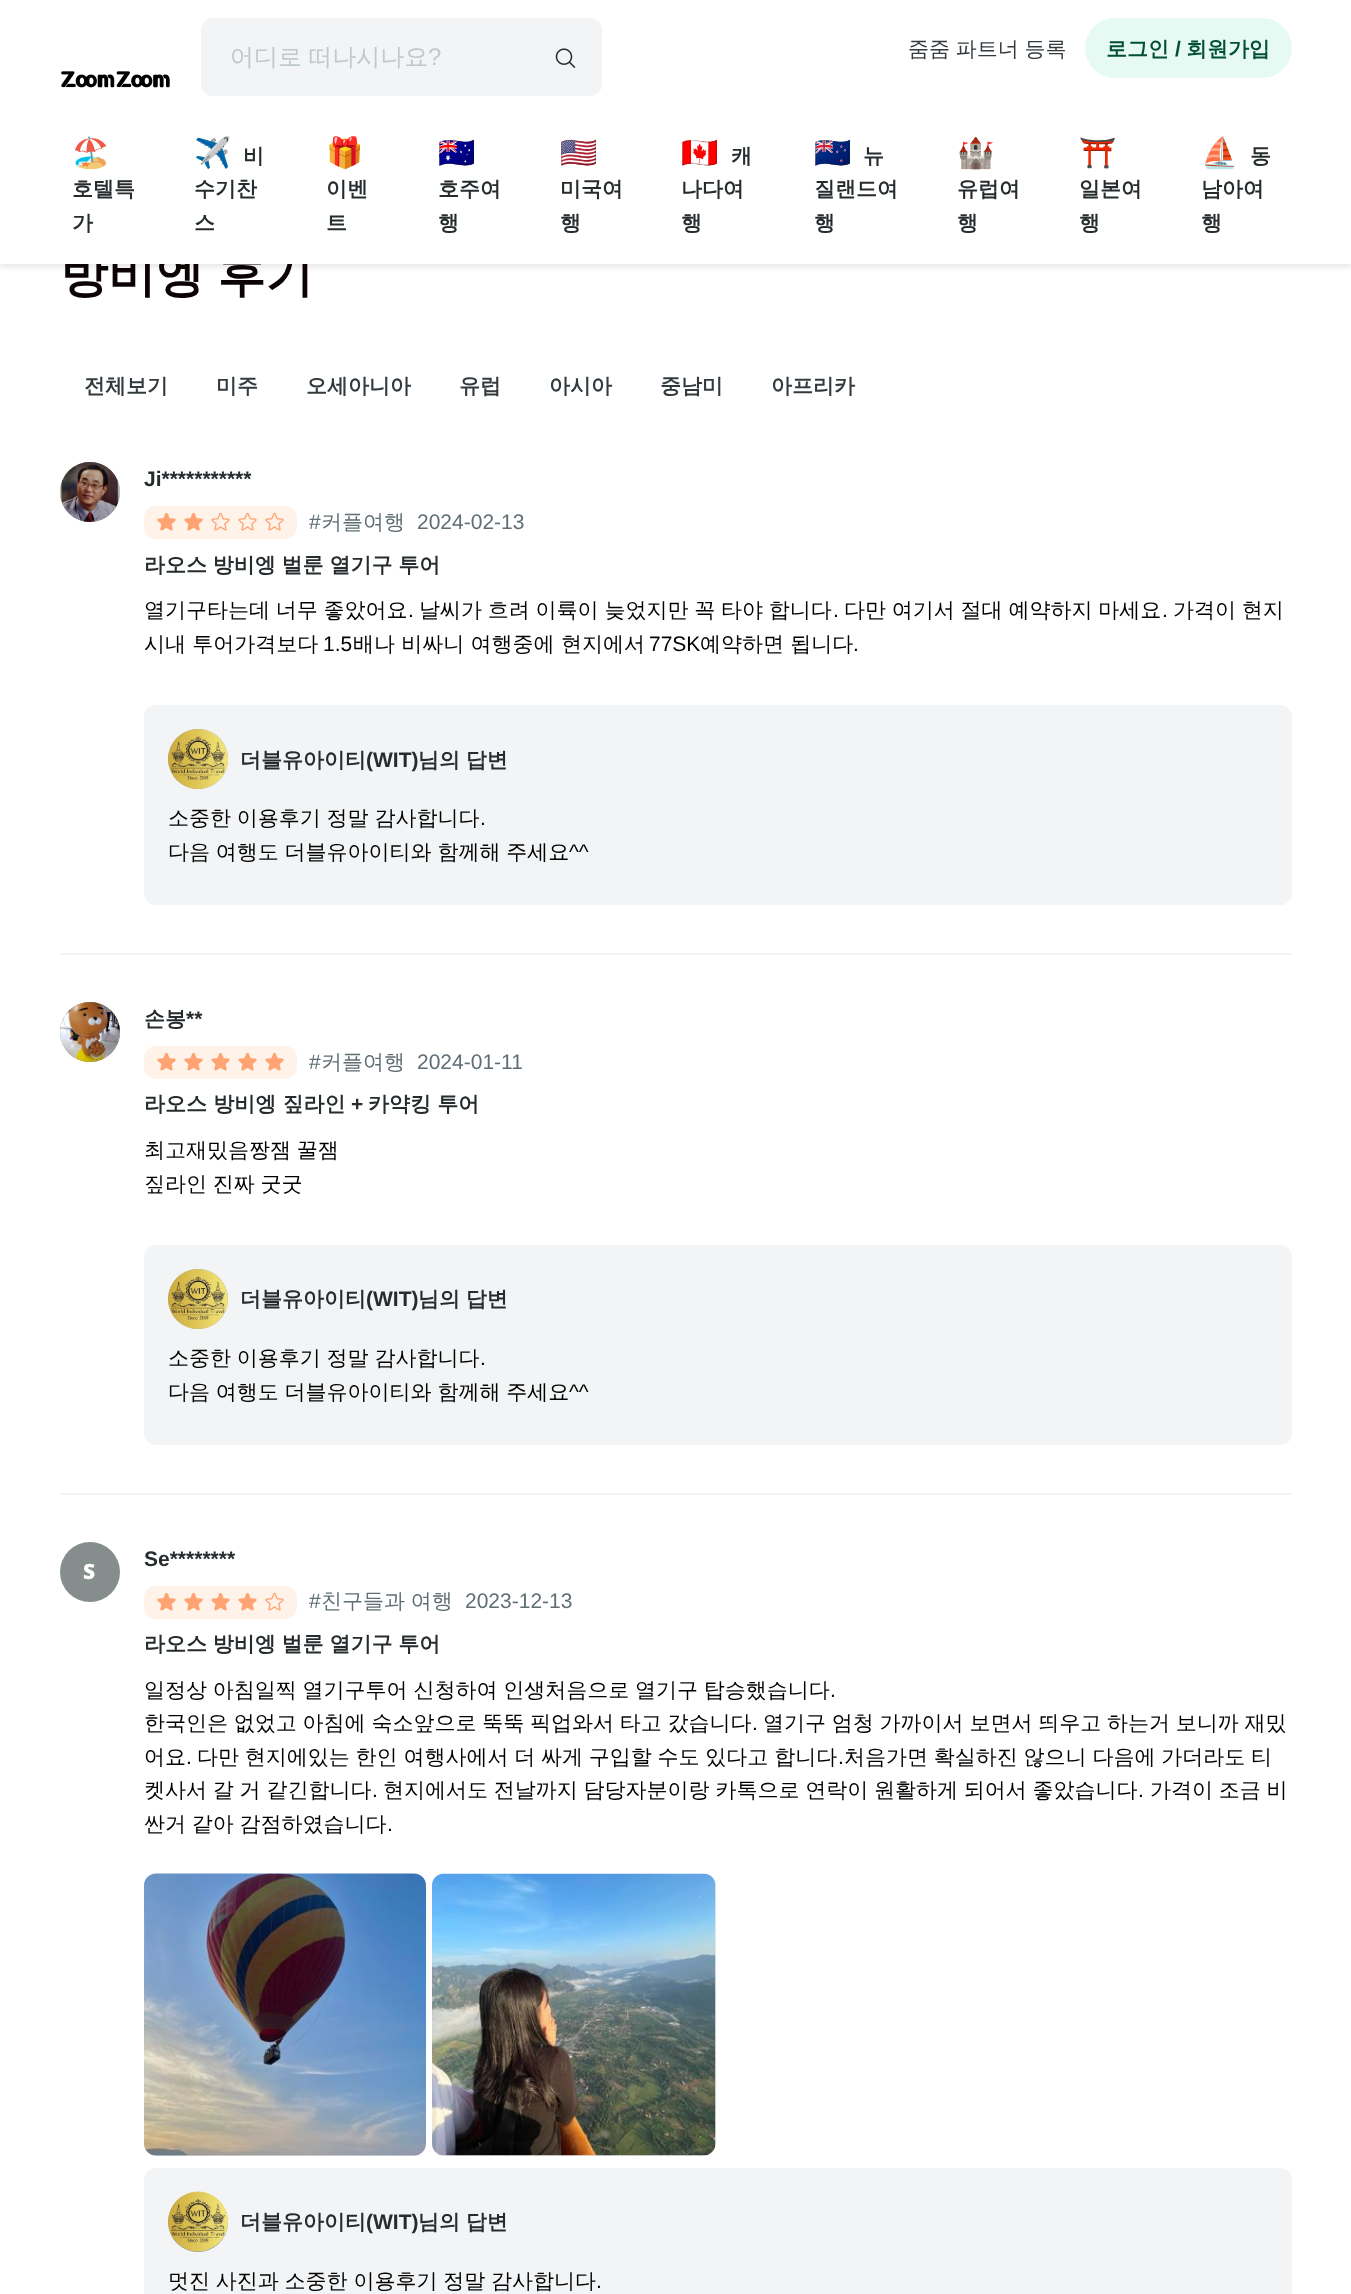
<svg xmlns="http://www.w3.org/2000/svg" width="1351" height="2294">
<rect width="100%" height="100%" fill="#fff"/>
<rect y="3" width="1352" height="264" fill="#0000001a" filter="blur(3px)"/>
<text x="60" y="291" word-spacing="-1" style="font-family:WenQuanYi Zen Hei;font-size:48px;font-weight:bold;fill:#0c0404">방비엥 후기</text>
<rect width="1351" height="264" fill="#fff"/>
<rect x="201" y="18" width="401" height="78" rx="12" fill="#f2f4f5"/>
<text x="230" y="65" word-spacing="-1" style="font-family:WenQuanYi Zen Hei;font-size:24px;font-weight:500;fill:#bfc9cd">어디로 떠나시나요</text>
<text x="428" y="65" style="font-family:Liberation Sans;font-size:24px;fill:#bfc9cd">?</text>
<image x="555" y="48" width="21" height="20" href="media/1.png"/>
<image x="61" y="71" width="109" height="17" href="media/2.png"/>
<text x="908" y="56" word-spacing="-0.5" style="font-family:WenQuanYi Zen Hei;font-size:21px;font-weight:500;fill:#333a3e">줌줌 파트너 등록</text>
<rect x="1085" y="18" width="207" height="60" rx="30" fill="#e6f9f2"/>
<text x="1106" y="56" style="font-family:WenQuanYi Zen Hei;font-size:21px;font-weight:bold;fill:#014f34">로그인</text>
<text x="1175" y="56" style="font-family:Liberation Sans;font-size:21px;font-weight:bold;fill:#014f34">/</text>
<text x="1186" y="56" style="font-family:WenQuanYi Zen Hei;font-size:21px;font-weight:bold;fill:#014f34">회원가입</text>
<text x="72" y="163" style="font-family:Noto Color Emoji;font-size:30px;font-weight:bold;fill:#262c2e">🏖️</text>
<text x="72" y="196" style="font-family:WenQuanYi Zen Hei;font-size:21px;font-weight:bold;fill:#262c2e">호텔특</text>
<text x="72" y="230" style="font-family:WenQuanYi Zen Hei;font-size:21px;font-weight:bold;fill:#262c2e">가</text>
<text x="194" y="163" style="font-family:Noto Color Emoji;font-size:30px;font-weight:bold;fill:#262c2e">✈️</text>
<text x="243" y="163" style="font-family:WenQuanYi Zen Hei;font-size:21px;font-weight:bold;fill:#262c2e">비</text>
<text x="194" y="196" style="font-family:WenQuanYi Zen Hei;font-size:21px;font-weight:bold;fill:#262c2e">수기찬</text>
<text x="194" y="230" style="font-family:WenQuanYi Zen Hei;font-size:21px;font-weight:bold;fill:#262c2e">스</text>
<text x="326" y="163" style="font-family:Noto Color Emoji;font-size:30px;font-weight:bold;fill:#262c2e">🎁</text>
<text x="326" y="196" style="font-family:WenQuanYi Zen Hei;font-size:21px;font-weight:bold;fill:#262c2e">이벤</text>
<text x="326" y="230" style="font-family:WenQuanYi Zen Hei;font-size:21px;font-weight:bold;fill:#262c2e">트</text>
<text x="438" y="163" style="font-family:Noto Color Emoji;font-size:30px;font-weight:bold;fill:#262c2e">🇦🇺</text>
<text x="438" y="196" style="font-family:WenQuanYi Zen Hei;font-size:21px;font-weight:bold;fill:#262c2e">호주여</text>
<text x="438" y="230" style="font-family:WenQuanYi Zen Hei;font-size:21px;font-weight:bold;fill:#262c2e">행</text>
<text x="560" y="163" style="font-family:Noto Color Emoji;font-size:30px;font-weight:bold;fill:#262c2e">🇺🇸</text>
<text x="560" y="196" style="font-family:WenQuanYi Zen Hei;font-size:21px;font-weight:bold;fill:#262c2e">미국여</text>
<text x="560" y="230" style="font-family:WenQuanYi Zen Hei;font-size:21px;font-weight:bold;fill:#262c2e">행</text>
<text x="681" y="163" style="font-family:Noto Color Emoji;font-size:30px;font-weight:bold;fill:#262c2e">🇨🇦</text>
<text x="731" y="163" style="font-family:WenQuanYi Zen Hei;font-size:21px;font-weight:bold;fill:#262c2e">캐</text>
<text x="681" y="196" style="font-family:WenQuanYi Zen Hei;font-size:21px;font-weight:bold;fill:#262c2e">나다여</text>
<text x="681" y="230" style="font-family:WenQuanYi Zen Hei;font-size:21px;font-weight:bold;fill:#262c2e">행</text>
<text x="814" y="163" style="font-family:Noto Color Emoji;font-size:30px;font-weight:bold;fill:#262c2e">🇳🇿</text>
<text x="863" y="163" style="font-family:WenQuanYi Zen Hei;font-size:21px;font-weight:bold;fill:#262c2e">뉴</text>
<text x="814" y="196" style="font-family:WenQuanYi Zen Hei;font-size:21px;font-weight:bold;fill:#262c2e">질랜드여</text>
<text x="814" y="230" style="font-family:WenQuanYi Zen Hei;font-size:21px;font-weight:bold;fill:#262c2e">행</text>
<text x="957" y="163" style="font-family:Noto Color Emoji;font-size:30px;font-weight:bold;fill:#262c2e">🏰</text>
<text x="957" y="196" style="font-family:WenQuanYi Zen Hei;font-size:21px;font-weight:bold;fill:#262c2e">유럽여</text>
<text x="957" y="230" style="font-family:WenQuanYi Zen Hei;font-size:21px;font-weight:bold;fill:#262c2e">행</text>
<text x="1079" y="163" style="font-family:Noto Color Emoji;font-size:30px;font-weight:bold;fill:#262c2e">⛩️</text>
<text x="1079" y="196" style="font-family:WenQuanYi Zen Hei;font-size:21px;font-weight:bold;fill:#262c2e">일본여</text>
<text x="1079" y="230" style="font-family:WenQuanYi Zen Hei;font-size:21px;font-weight:bold;fill:#262c2e">행</text>
<text x="1201" y="163" style="font-family:Noto Color Emoji;font-size:30px;font-weight:bold;fill:#262c2e">⛵️</text>
<text x="1250" y="163" style="font-family:WenQuanYi Zen Hei;font-size:21px;font-weight:bold;fill:#262c2e">동</text>
<text x="1201" y="196" style="font-family:WenQuanYi Zen Hei;font-size:21px;font-weight:bold;fill:#262c2e">남아여</text>
<text x="1201" y="230" style="font-family:WenQuanYi Zen Hei;font-size:21px;font-weight:bold;fill:#262c2e">행</text>
<text x="84" y="393" style="font-family:WenQuanYi Zen Hei;font-size:21px;font-weight:bold;fill:#333a3e">전체보기</text>
<text x="216" y="393" style="font-family:WenQuanYi Zen Hei;font-size:21px;font-weight:bold;fill:#333a3e">미주</text>
<text x="306" y="393" style="font-family:WenQuanYi Zen Hei;font-size:21px;font-weight:bold;fill:#333a3e">오세아니아</text>
<text x="459" y="393" style="font-family:WenQuanYi Zen Hei;font-size:21px;font-weight:bold;fill:#333a3e">유럽</text>
<text x="549" y="393" style="font-family:WenQuanYi Zen Hei;font-size:21px;font-weight:bold;fill:#333a3e">아시아</text>
<text x="660" y="393" style="font-family:WenQuanYi Zen Hei;font-size:21px;font-weight:bold;fill:#333a3e">중남미</text>
<text x="771" y="393" style="font-family:WenQuanYi Zen Hei;font-size:21px;font-weight:bold;fill:#333a3e">아프리카</text>
<rect x="60" y="953" width="1232" height="2" fill="#f2f4f5"/>
<circle cx="90" cy="492" r="30" fill="#858d8d"/>
<image x="60" y="462" width="60" height="60" href="media/3.png"/>
<text x="144" y="486" style="font-family:Liberation Sans;font-size:21px;font-weight:bold;fill:#262c2e">Ji***********</text>
<rect x="144" y="506" width="153" height="33" rx="12" fill="#fff2e9"/>
<image x="157" y="512" width="19" height="19" href="media/4.png"/>
<image x="184" y="512" width="19" height="19" href="media/4.png"/>
<image x="211" y="512" width="19" height="19" href="media/5.png"/>
<image x="238" y="512" width="19" height="19" href="media/5.png"/>
<image x="265" y="512" width="19" height="19" href="media/5.png"/>
<text x="309" y="529" style="font-family:Liberation Sans;font-size:21px;fill:#5f6e74">#</text>
<text x="321" y="529" style="font-family:WenQuanYi Zen Hei;font-size:21px;font-weight:500;fill:#5f6e74">커플여행</text>
<text x="417" y="529" style="font-family:Liberation Sans;font-size:21px;fill:#5f6e74">2024-02-13</text>
<text x="144" y="572" word-spacing="-0.5" style="font-family:WenQuanYi Zen Hei;font-size:21px;font-weight:bold;fill:#262c2e">라오스 방비엥 벌룬 열기구 투어</text>
<text x="144" y="617" word-spacing="-0.5" style="font-family:WenQuanYi Zen Hei;font-size:21px;font-weight:500;fill:#000">열기구타는데 너무 좋았어요</text>
<text x="408" y="617" style="font-family:Liberation Sans;font-size:21px;fill:#000">.</text>
<text x="419" y="617" word-spacing="-0.5" style="font-family:WenQuanYi Zen Hei;font-size:21px;font-weight:500;fill:#000">날씨가 흐려 이륙이 늦었지만 꼭 타야 합니다</text>
<text x="833" y="617" style="font-family:Liberation Sans;font-size:21px;fill:#000">.</text>
<text x="844" y="617" word-spacing="-0.5" style="font-family:WenQuanYi Zen Hei;font-size:21px;font-weight:500;fill:#000">다만 여기서 절대 예약하지 마세요</text>
<text x="1162" y="617" style="font-family:Liberation Sans;font-size:21px;fill:#000">.</text>
<text x="1173" y="617" word-spacing="-0.5" style="font-family:WenQuanYi Zen Hei;font-size:21px;font-weight:500;fill:#000">가격이 현지</text>
<text x="144" y="651" style="font-family:WenQuanYi Zen Hei;font-size:21px;font-weight:500;fill:#000">시내 투어가격보다</text>
<text x="323" y="651" style="font-family:Liberation Sans;font-size:21px;fill:#000">1.5</text>
<text x="353" y="651" style="font-family:WenQuanYi Zen Hei;font-size:21px;font-weight:500;fill:#000">배나 비싸니 여행중에 현지에서</text>
<text x="649" y="651" style="font-family:Liberation Sans;font-size:21px;fill:#000">77SK</text>
<text x="700" y="651" style="font-family:WenQuanYi Zen Hei;font-size:21px;font-weight:500;fill:#000">예약하면 됩니다</text>
<text x="853" y="651" style="font-family:Liberation Sans;font-size:21px;fill:#000">.</text>
<rect x="144" y="705" width="1148" height="200" rx="12" fill="#f2f4f5"/>
<circle cx="198" cy="759" r="30" fill="#858d8d"/>
<image x="168" y="729" width="60" height="60" href="media/6.png"/>
<text x="240" y="767" style="font-family:WenQuanYi Zen Hei;font-size:21px;font-weight:bold;fill:#262c2e">더블유아이티</text>
<text x="366" y="767" style="font-family:Liberation Sans;font-size:21px;font-weight:bold;fill:#262c2e">(WIT)</text>
<text x="418" y="767" word-spacing="-0.5" style="font-family:WenQuanYi Zen Hei;font-size:21px;font-weight:bold;fill:#262c2e">님의 답변</text>
<text x="168" y="825" word-spacing="-0.5" style="font-family:WenQuanYi Zen Hei;font-size:21px;font-weight:500;fill:#000">소중한 이용후기 정말 감사합니다</text>
<text x="480" y="825" style="font-family:Liberation Sans;font-size:21px;fill:#000">.</text>
<text x="168" y="859" word-spacing="-0.5" style="font-family:WenQuanYi Zen Hei;font-size:21px;font-weight:500;fill:#000">다음 여행도 더블유아이티와 함께해 주세요</text>
<text x="569" y="859" style="font-family:Liberation Sans;font-size:21px;fill:#000">^^</text>
<rect x="60" y="1493" width="1232" height="2" fill="#f2f4f5"/>
<circle cx="90" cy="1032" r="30" fill="#858d8d"/>
<image x="60" y="1002" width="60" height="60" href="media/7.png"/>
<text x="144" y="1026" style="font-family:WenQuanYi Zen Hei;font-size:21px;font-weight:bold;fill:#262c2e">손봉</text>
<text x="186" y="1026" style="font-family:Liberation Sans;font-size:21px;font-weight:bold;fill:#262c2e">**</text>
<rect x="144" y="1046" width="153" height="33" rx="12" fill="#fff2e9"/>
<image x="157" y="1052" width="19" height="19" href="media/4.png"/>
<image x="184" y="1052" width="19" height="19" href="media/4.png"/>
<image x="211" y="1052" width="19" height="19" href="media/4.png"/>
<image x="238" y="1052" width="19" height="19" href="media/4.png"/>
<image x="265" y="1052" width="19" height="19" href="media/4.png"/>
<text x="309" y="1069" style="font-family:Liberation Sans;font-size:21px;fill:#5f6e74">#</text>
<text x="321" y="1069" style="font-family:WenQuanYi Zen Hei;font-size:21px;font-weight:500;fill:#5f6e74">커플여행</text>
<text x="417" y="1069" style="font-family:Liberation Sans;font-size:21px;fill:#5f6e74">2024-01-11</text>
<text x="144" y="1111" style="font-family:WenQuanYi Zen Hei;font-size:21px;font-weight:bold;fill:#262c2e">라오스 방비엥 짚라인</text>
<text x="351" y="1111" style="font-family:Liberation Sans;font-size:21px;font-weight:bold;fill:#262c2e">+</text>
<text x="368" y="1111" style="font-family:WenQuanYi Zen Hei;font-size:21px;font-weight:bold;fill:#262c2e">카약킹 투어</text>
<text x="144" y="1157" word-spacing="-0.5" style="font-family:WenQuanYi Zen Hei;font-size:21px;font-weight:500;fill:#000">최고재밌음짱잼 꿀잼</text>
<text x="144" y="1191" word-spacing="-0.5" style="font-family:WenQuanYi Zen Hei;font-size:21px;font-weight:500;fill:#000">짚라인 진짜 굿굿</text>
<rect x="144" y="1245" width="1148" height="200" rx="12" fill="#f2f4f5"/>
<circle cx="198" cy="1299" r="30" fill="#858d8d"/>
<image x="168" y="1269" width="60" height="60" href="media/8.png"/>
<text x="240" y="1306" style="font-family:WenQuanYi Zen Hei;font-size:21px;font-weight:bold;fill:#262c2e">더블유아이티</text>
<text x="366" y="1306" style="font-family:Liberation Sans;font-size:21px;font-weight:bold;fill:#262c2e">(WIT)</text>
<text x="418" y="1306" word-spacing="-0.5" style="font-family:WenQuanYi Zen Hei;font-size:21px;font-weight:bold;fill:#262c2e">님의 답변</text>
<text x="168" y="1365" word-spacing="-0.5" style="font-family:WenQuanYi Zen Hei;font-size:21px;font-weight:500;fill:#000">소중한 이용후기 정말 감사합니다</text>
<text x="480" y="1365" style="font-family:Liberation Sans;font-size:21px;fill:#000">.</text>
<text x="168" y="1399" word-spacing="-0.5" style="font-family:WenQuanYi Zen Hei;font-size:21px;font-weight:500;fill:#000">다음 여행도 더블유아이티와 함께해 주세요</text>
<text x="569" y="1399" style="font-family:Liberation Sans;font-size:21px;fill:#000">^^</text>
<circle cx="90" cy="1572" r="30" fill="#858d8d"/>
<text x="83" y="1579" style="font-family:Noto Sans;font-size:21px;font-weight:900;fill:#fff">S</text>
<text x="144" y="1566" style="font-family:Liberation Sans;font-size:21px;font-weight:bold;fill:#262c2e">Se********</text>
<rect x="144" y="1586" width="153" height="33" rx="12" fill="#fff2e9"/>
<image x="157" y="1592" width="19" height="19" href="media/4.png"/>
<image x="184" y="1592" width="19" height="19" href="media/4.png"/>
<image x="211" y="1592" width="19" height="19" href="media/4.png"/>
<image x="238" y="1592" width="19" height="19" href="media/4.png"/>
<image x="265" y="1592" width="19" height="19" href="media/5.png"/>
<text x="309" y="1608" style="font-family:Liberation Sans;font-size:21px;fill:#5f6e74">#</text>
<text x="321" y="1608" word-spacing="-0.5" style="font-family:WenQuanYi Zen Hei;font-size:21px;font-weight:500;fill:#5f6e74">친구들과 여행</text>
<text x="465" y="1608" style="font-family:Liberation Sans;font-size:21px;fill:#5f6e74">2023-12-13</text>
<text x="144" y="1651" word-spacing="-0.5" style="font-family:WenQuanYi Zen Hei;font-size:21px;font-weight:bold;fill:#262c2e">라오스 방비엥 벌룬 열기구 투어</text>
<text x="144" y="1697" word-spacing="-0.5" style="font-family:WenQuanYi Zen Hei;font-size:21px;font-weight:500;fill:#000">일정상 아침일찍 열기구투어 신청하여 인생처음으로 열기구 탑승했습니다</text>
<text x="830" y="1697" style="font-family:Liberation Sans;font-size:21px;fill:#000">.</text>
<text x="144" y="1730" word-spacing="-0.5" style="font-family:WenQuanYi Zen Hei;font-size:21px;font-weight:500;fill:#000">한국인은 없었고 아침에 숙소앞으로 뚝뚝 픽업와서 타고 갔습니다</text>
<text x="752" y="1730" style="font-family:Liberation Sans;font-size:21px;fill:#000">.</text>
<text x="763" y="1730" word-spacing="-0.5" style="font-family:WenQuanYi Zen Hei;font-size:21px;font-weight:500;fill:#000">열기구 엄청 가까이서 보면서 띄우고 하는거 보니까 재밌</text>
<text x="144" y="1764" style="font-family:WenQuanYi Zen Hei;font-size:21px;font-weight:500;fill:#000">어요</text>
<text x="186" y="1764" style="font-family:Liberation Sans;font-size:21px;fill:#000">.</text>
<text x="197" y="1764" word-spacing="-0.5" style="font-family:WenQuanYi Zen Hei;font-size:21px;font-weight:500;fill:#000">다만 현지에있는 한인 여행사에서 더 싸게 구입할 수도 있다고 합니다</text>
<text x="838" y="1764" style="font-family:Liberation Sans;font-size:21px;fill:#000">.</text>
<text x="844" y="1764" word-spacing="-0.5" style="font-family:WenQuanYi Zen Hei;font-size:21px;font-weight:500;fill:#000">처음가면 확실하진 않으니 다음에 가더라도 티</text>
<text x="144" y="1797" word-spacing="-0.5" style="font-family:WenQuanYi Zen Hei;font-size:21px;font-weight:500;fill:#000">켓사서 갈 거 같긴합니다</text>
<text x="372" y="1797" style="font-family:Liberation Sans;font-size:21px;fill:#000">.</text>
<text x="383" y="1797" word-spacing="-0.5" style="font-family:WenQuanYi Zen Hei;font-size:21px;font-weight:500;fill:#000">현지에서도 전날까지 담당자분이랑 카톡으로 연락이 원활하게 되어서 좋았습니다</text>
<text x="1138" y="1797" style="font-family:Liberation Sans;font-size:21px;fill:#000">.</text>
<text x="1150" y="1797" word-spacing="-0.5" style="font-family:WenQuanYi Zen Hei;font-size:21px;font-weight:500;fill:#000">가격이 조금 비</text>
<text x="144" y="1831" word-spacing="-0.5" style="font-family:WenQuanYi Zen Hei;font-size:21px;font-weight:500;fill:#000">싼거 같아 감점하였습니다</text>
<text x="387" y="1831" style="font-family:Liberation Sans;font-size:21px;fill:#000">.</text>
<rect x="144" y="1874" width="282" height="282" rx="12" fill="#eee"/>
<image x="144" y="1873" width="283" height="283" href="media/9.png"/>
<rect x="432" y="1874" width="284" height="282" rx="12" fill="#eee"/>
<image x="432" y="1873" width="284" height="283" href="media/10.png"/>
<rect x="144" y="2168" width="1148" height="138" rx="12" fill="#f2f4f5"/>
<circle cx="198" cy="2222" r="30" fill="#858d8d"/>
<image x="167" y="2191" width="61" height="61" href="media/11.png"/>
<text x="240" y="2229" style="font-family:WenQuanYi Zen Hei;font-size:21px;font-weight:bold;fill:#262c2e">더블유아이티</text>
<text x="366" y="2229" style="font-family:Liberation Sans;font-size:21px;font-weight:bold;fill:#262c2e">(WIT)</text>
<text x="418" y="2229" word-spacing="-0.5" style="font-family:WenQuanYi Zen Hei;font-size:21px;font-weight:bold;fill:#262c2e">님의 답변</text>
<text x="168" y="2288" word-spacing="-0.5" style="font-family:WenQuanYi Zen Hei;font-size:21px;font-weight:500;fill:#000">멋진 사진과 소중한 이용후기 정말 감사합니다</text>
<text x="596" y="2288" style="font-family:Liberation Sans;font-size:21px;fill:#000">.</text>
</svg>
